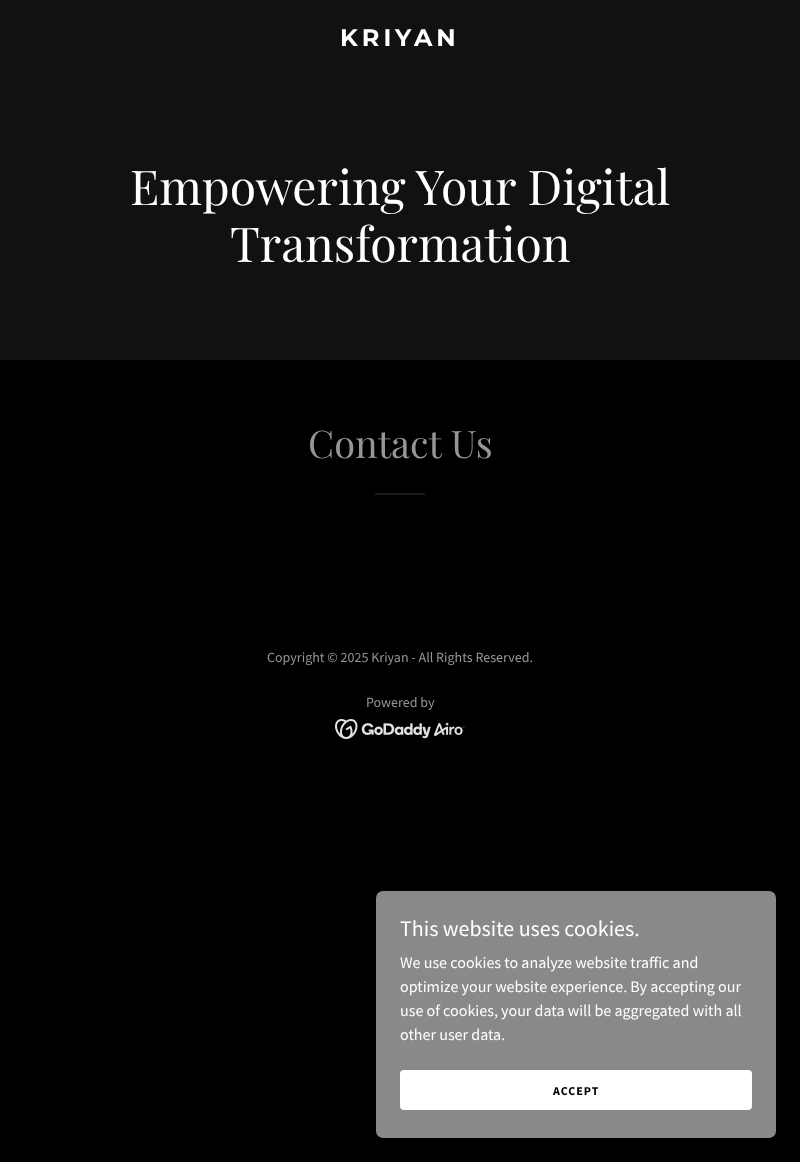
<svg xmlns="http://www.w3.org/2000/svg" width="800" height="1162">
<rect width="100%" height="100%" fill="#000"/>
<rect width="800" height="360" fill="#111"/>
<text x="340" y="46" style="font-family:Montserrat;font-size:24px;font-weight:bold;letter-spacing:4px;fill:#fff">KRIYAN</text>
<text x="130" y="205" style="font-family:Playfair Display;font-size:48px;fill:#fff">Empowering Your Digital</text>
<text x="230" y="262" style="font-family:Playfair Display;font-size:48px;fill:#fff">Transformation</text>
<text x="308" y="458" style="font-family:Playfair Display;font-size:38px;fill:#969696">Contact Us</text>
<rect x="375" y="493" width="50" height="2" fill="#1b1b1b"/>
<text x="267" y="662" style="font-family:Source Sans Pro;font-size:14px;fill:#969696">Copyright © 2025 Kriyan - All Rights Reserved.</text>
<text x="366" y="707" style="font-family:Source Sans Pro;font-size:14px;fill:#969696">Powered by</text>
<image x="335" y="719" width="130" height="20" href="media/1.png"/>
<rect x="376" y="891" width="400" height="247" rx="7" fill="#898989"/>
<text x="400" y="936" style="font-family:Source Sans Pro;font-size:22px;fill:#fff">This website uses cookies.</text>
<text x="400" y="968" style="font-family:Source Sans Pro;font-size:16px;fill:#fff">We use cookies to analyze website traffic and</text>
<text x="400" y="992" style="font-family:Source Sans Pro;font-size:16px;fill:#fff">optimize your website experience. By accepting our</text>
<text x="400" y="1016" style="font-family:Source Sans Pro;font-size:16px;fill:#fff">use of cookies, your data will be aggregated with all</text>
<text x="400" y="1040" style="font-family:Source Sans Pro;font-size:16px;fill:#fff">other user data.</text>
<rect x="400" y="1070" width="352" height="40" rx="4" fill="#fff"/>
<text x="553" y="1095" style="font-family:Source Sans Pro;font-size:12px;font-weight:bold;letter-spacing:1px;fill:#000">ACCEPT</text>
</svg>
